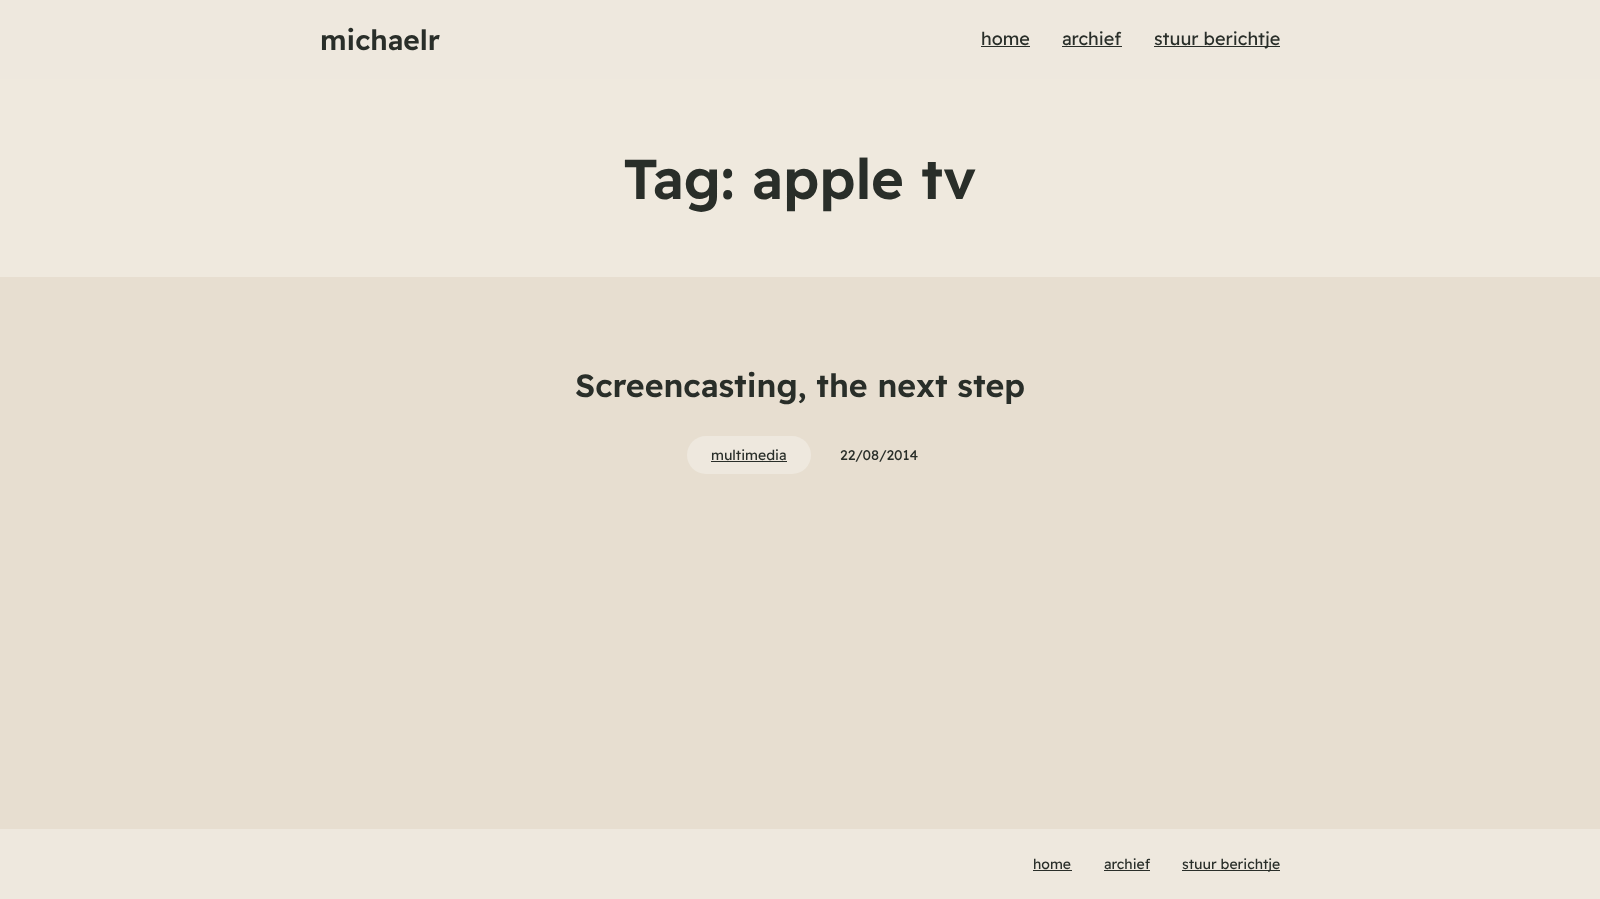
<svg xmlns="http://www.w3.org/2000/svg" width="1600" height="899">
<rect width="100%" height="100%" fill="#e7ded0"/>
<rect width="1600" height="79" fill="#eee8de"/>
<text x="320" y="50" style="font-family:Readex Pro;font-size:28px;font-weight:600;fill:#292e29">michaelr</text>
<text x="981" y="45" style="font-family:Readex Pro;font-size:18px;fill:#292e29">home</text>
<rect x="981" y="46" width="49" height="1" fill="#292e29"/>
<text x="1062" y="45" style="font-family:Readex Pro;font-size:18px;fill:#292e29">archief</text>
<rect x="1062" y="46" width="60" height="1" fill="#292e29"/>
<rect x="1154" y="46" width="126" height="1" fill="#292e29"/>
<text x="1154" y="45" style="font-family:Readex Pro;font-size:18px;fill:#292e29">stuur berichtje</text>
<rect y="79" width="1600" height="198" fill="#efe9de"/>
<text x="623" y="199" style="font-family:Readex Pro;font-size:56px;font-weight:600;fill:#292e29">Tag: apple tv</text>
<text x="575" y="397" style="font-family:Readex Pro;font-size:32px;font-weight:600;fill:#292e29">Screencasting, the next step</text>
<rect x="687" y="436" width="124" height="38" rx="19" fill="#eee8de"/>
<text x="711" y="460" style="font-family:Readex Pro;font-size:14px;fill:#292e29">multimedia</text>
<rect x="711" y="461" width="76" height="1" fill="#292e29"/>
<text x="840" y="460" style="font-family:Readex Pro;font-size:14px;fill:#292e29">22/08/2014</text>
<rect y="829" width="1600" height="70" fill="#eee8de"/>
<text x="1033" y="869" style="font-family:Readex Pro;font-size:14px;fill:#292e29">home</text>
<rect x="1033" y="870" width="39" height="1" fill="#292e29"/>
<text x="1104" y="869" style="font-family:Readex Pro;font-size:14px;fill:#292e29">archief</text>
<rect x="1104" y="870" width="46" height="1" fill="#292e29"/>
<rect x="1182" y="870" width="98" height="1" fill="#292e29"/>
<text x="1182" y="869" style="font-family:Readex Pro;font-size:14px;fill:#292e29">stuur berichtje</text>
</svg>
